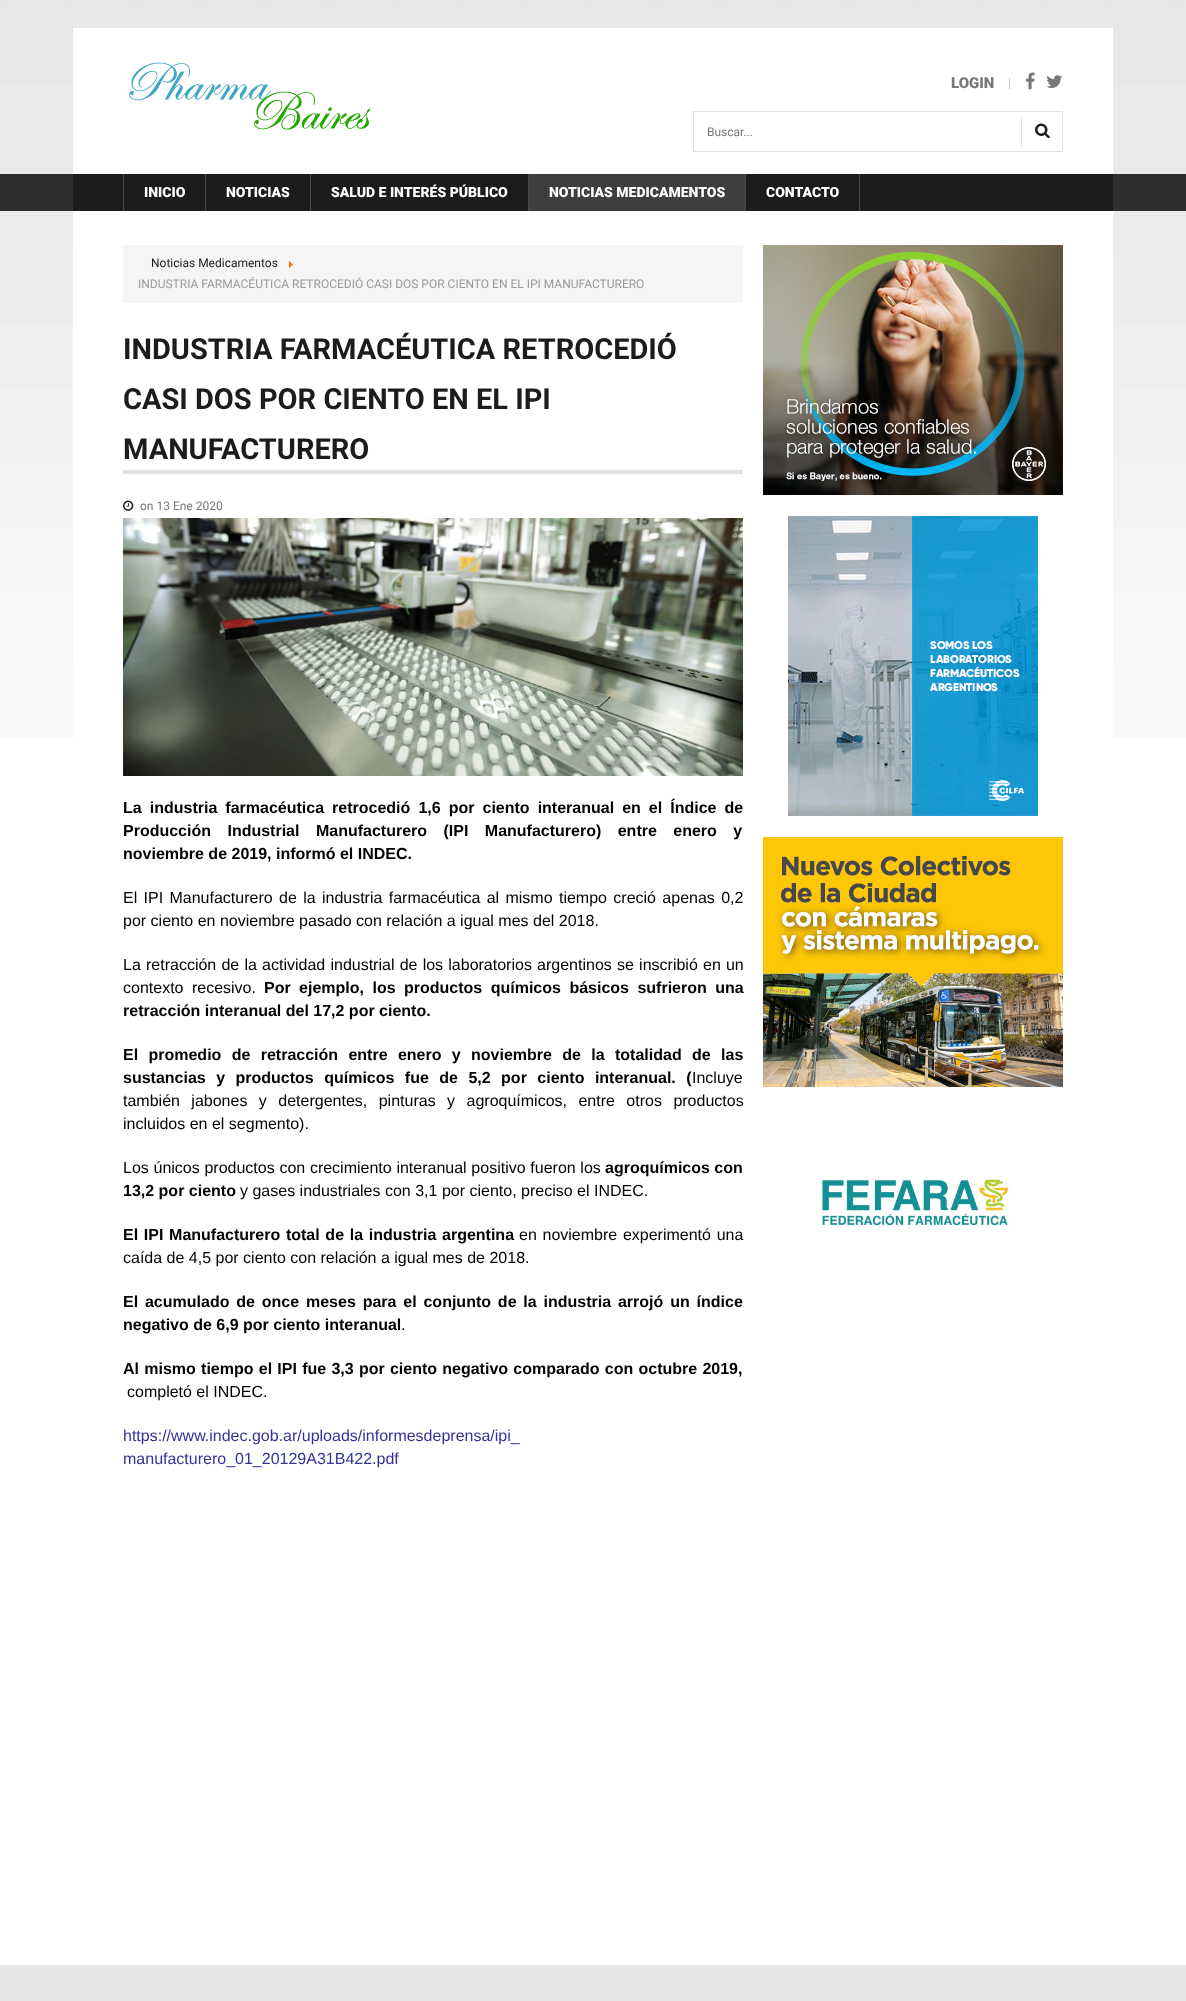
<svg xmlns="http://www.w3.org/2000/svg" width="1186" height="2001">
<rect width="100%" height="100%" fill="#fff"/>
<image x="0" y="0" width="1186" height="738" href="media/1.png"/>
<rect x="73" y="28" width="1040" height="146" fill="#fff"/>
<image x="129" y="62" width="242" height="68" href="media/2.png"/>
<rect x="1009" y="78" width="1" height="11" fill="#ccc"/>
<text x="951" y="88" style="font-family:Roboto;font-size:15px;font-weight:900;fill:#777">LOGIN</text>
<image x="1025" y="72" width="10" height="18" href="media/3.png"/>
<image x="1046" y="75" width="17" height="13" href="media/4.png"/>
<rect x="693.5" y="111.5" width="369" height="40" fill="none" stroke="#e1e1e1"/>
<text x="707" y="136" style="font-family:Roboto;font-size:12px;fill:#777">Buscar...</text>
<rect x="1021" y="118" width="1" height="28" fill="#e1e1e1"/>
<image x="1035" y="123" width="15" height="16" href="media/5.png"/>
<rect y="174" width="1186" height="37" fill="#2f2f2f"/>
<rect x="73" y="174" width="1040" height="37" fill="#1c1c1c"/>
<rect x="123" y="174" width="1" height="37" fill="#494949"/>
<rect x="205" y="174" width="1" height="37" fill="#494949"/>
<text x="144" y="197" style="font-family:Roboto;font-size:14px;font-weight:900;fill:#fff">INICIO</text>
<rect x="310" y="174" width="1" height="37" fill="#494949"/>
<text x="226" y="197" style="font-family:Roboto;font-size:14px;font-weight:900;fill:#fff">NOTICIAS</text>
<rect x="528" y="174" width="1" height="37" fill="#494949"/>
<text x="331" y="197" style="font-family:Roboto;font-size:14px;font-weight:900;fill:#fff">SALUD E INTERÉS PÚBLICO</text>
<rect x="745" y="174" width="1" height="37" fill="#494949"/>
<rect x="529" y="174" width="216" height="37" fill="#3e3e3e"/>
<text x="549" y="197" style="font-family:Roboto;font-size:14px;font-weight:900;fill:#fff">NOTICIAS MEDICAMENTOS</text>
<rect x="859" y="174" width="1" height="37" fill="#494949"/>
<text x="766" y="197" style="font-family:Roboto;font-size:14px;font-weight:900;fill:#fff">CONTACTO</text>
<rect x="73" y="211" width="1040" height="527" fill="#fff"/>
<rect x="123" y="245" width="620" height="58" fill="#f5f5f5"/>
<text x="151" y="267" style="font-family:Roboto;font-size:12px;fill:#1c1c1c">Noticias Medicamentos</text>
<image x="289" y="261" width="4" height="7" href="media/6.png"/>
<text x="138" y="288" style="font-family:Roboto;font-size:12px;fill:#999">INDUSTRIA FARMACÉUTICA RETROCEDIÓ CASI DOS POR CIENTO EN EL IPI MANUFACTURERO</text>
<text x="123" y="359" style="font-family:Roboto;font-size:29px;font-weight:bold;fill:#1c1c1c">INDUSTRIA FARMACÉUTICA RETROCEDIÓ</text>
<text x="123" y="409" style="font-family:Roboto;font-size:29px;font-weight:bold;fill:#1c1c1c">CASI DOS POR CIENTO EN EL IPI</text>
<text x="123" y="459" style="font-family:Roboto;font-size:29px;font-weight:bold;fill:#1c1c1c">MANUFACTURERO</text>
<rect x="123" y="470" width="620" height="4" fill="#e1e1e1"/>
<image x="123" y="500" width="11" height="11" href="media/7.png"/>
<text x="140" y="510" style="font-family:Roboto;font-size:12px;fill:#777">on 13 Ene 2020</text>
<image x="123" y="518" width="620" height="258" href="media/8.png"/>
<text x="123" y="813" word-spacing="3.6" style="font-family:Liberation Sans;font-size:16px;font-weight:bold;fill:#000">La industria farmacéutica retrocedió 1,6 por ciento interanual en el Índice de</text>
<text x="123" y="836" word-spacing="12" style="font-family:Liberation Sans;font-size:16px;font-weight:bold;fill:#000">Producción Industrial Manufacturero (IPI Manufacturero) entre enero y</text>
<text x="123" y="859" style="font-family:Liberation Sans;font-size:16px;font-weight:bold;fill:#000">noviembre de 2019, informó el INDEC.</text>
<text x="123" y="903" word-spacing="1.9" style="font-family:Liberation Sans;font-size:16px;fill:#000">El IPI Manufacturero de la industria farmacéutica al mismo tiempo creció apenas 0,2</text>
<text x="123" y="926" style="font-family:Liberation Sans;font-size:16px;fill:#000">por ciento en noviembre pasado con relación a igual mes del 2018.</text>
<text x="123" y="970" word-spacing="0.75" style="font-family:Liberation Sans;font-size:16px;fill:#000">La retracción de la actividad industrial de los laboratorios argentinos se inscribió en un</text>
<text x="123" y="993" word-spacing="4" style="font-family:Liberation Sans;font-size:16px;fill:#000">contexto recesivo.</text>
<text x="264" y="993" word-spacing="4" style="font-family:Liberation Sans;font-size:16px;font-weight:bold;fill:#000">Por ejemplo, los productos químicos básicos sufrieron una</text>
<text x="123" y="1016" style="font-family:Liberation Sans;font-size:16px;font-weight:bold;fill:#000">retracción interanual del 17,2 por ciento.</text>
<text x="123" y="1060" word-spacing="5.9" style="font-family:Liberation Sans;font-size:16px;font-weight:bold;fill:#000">El promedio de retracción entre enero y noviembre de la totalidad de las</text>
<text x="123" y="1083" word-spacing="6" style="font-family:Liberation Sans;font-size:16px;font-weight:bold;fill:#000">sustancias y productos químicos fue de 5,2 por ciento interanual. (</text>
<text x="692" y="1083" style="font-family:Liberation Sans;font-size:16px;fill:#000">Incluye</text>
<text x="123" y="1106" word-spacing="7" style="font-family:Liberation Sans;font-size:16px;fill:#000">también jabones y detergentes, pinturas y agroquímicos, entre otros productos</text>
<text x="123" y="1129" style="font-family:Liberation Sans;font-size:16px;fill:#000">incluidos en el segmento).</text>
<text x="123" y="1173" word-spacing="0.25" style="font-family:Liberation Sans;font-size:16px;fill:#000">Los únicos productos con crecimiento interanual positivo fueron los</text>
<text x="605" y="1173" style="font-family:Liberation Sans;font-size:16px;font-weight:bold;fill:#000">agroquímicos con</text>
<text x="123" y="1196" style="font-family:Liberation Sans;font-size:16px;font-weight:bold;fill:#000">13,2 por ciento</text>
<text x="240" y="1196" style="font-family:Liberation Sans;font-size:16px;fill:#000">y gases industriales con 3,1 por ciento, preciso el INDEC.</text>
<text x="123" y="1240" word-spacing="1.25" style="font-family:Liberation Sans;font-size:16px;font-weight:bold;fill:#000">El IPI Manufacturero total de la industria argentina</text>
<text x="519" y="1240" word-spacing="1.25" style="font-family:Liberation Sans;font-size:16px;fill:#000">en noviembre experimentó una</text>
<text x="123" y="1263" style="font-family:Liberation Sans;font-size:16px;fill:#000">caída de 4,5 por ciento con relación a igual mes de 2018.</text>
<text x="123" y="1307" word-spacing="2.4" style="font-family:Liberation Sans;font-size:16px;font-weight:bold;fill:#000">El acumulado de once meses para el conjunto de la industria arrojó un índice</text>
<text x="123" y="1330" style="font-family:Liberation Sans;font-size:16px;font-weight:bold;fill:#000">negativo de 6,9 por ciento interanual</text>
<text x="401" y="1330" style="font-family:Liberation Sans;font-size:16px;fill:#000">.</text>
<text x="123" y="1374" word-spacing="0.8" style="font-family:Liberation Sans;font-size:16px;font-weight:bold;fill:#000">Al mismo tiempo el IPI fue 3,3 por ciento negativo comparado con octubre 2019,</text>
<text x="127" y="1397" style="font-family:Liberation Sans;font-size:16px;fill:#000">completó el INDEC.</text>
<text x="123" y="1441" style="font-family:Liberation Sans;font-size:16px;fill:#339">https://www.indec.gob.ar/uploads/informesdeprensa/ipi_</text>
<text x="123" y="1464" style="font-family:Liberation Sans;font-size:16px;fill:#339">manufacturero_01_20129A31B422.pdf</text>
<image x="763" y="245" width="300" height="250" href="media/9.png"/>
<image x="788" y="516" width="250" height="300" href="media/10.png"/>
<image x="763" y="837" width="300" height="250" href="media/11.png"/>
<image x="820" y="1179" width="192" height="49" href="media/12.png"/>
<rect y="1965" width="1186" height="36" fill="#e6e6e6"/>
</svg>
